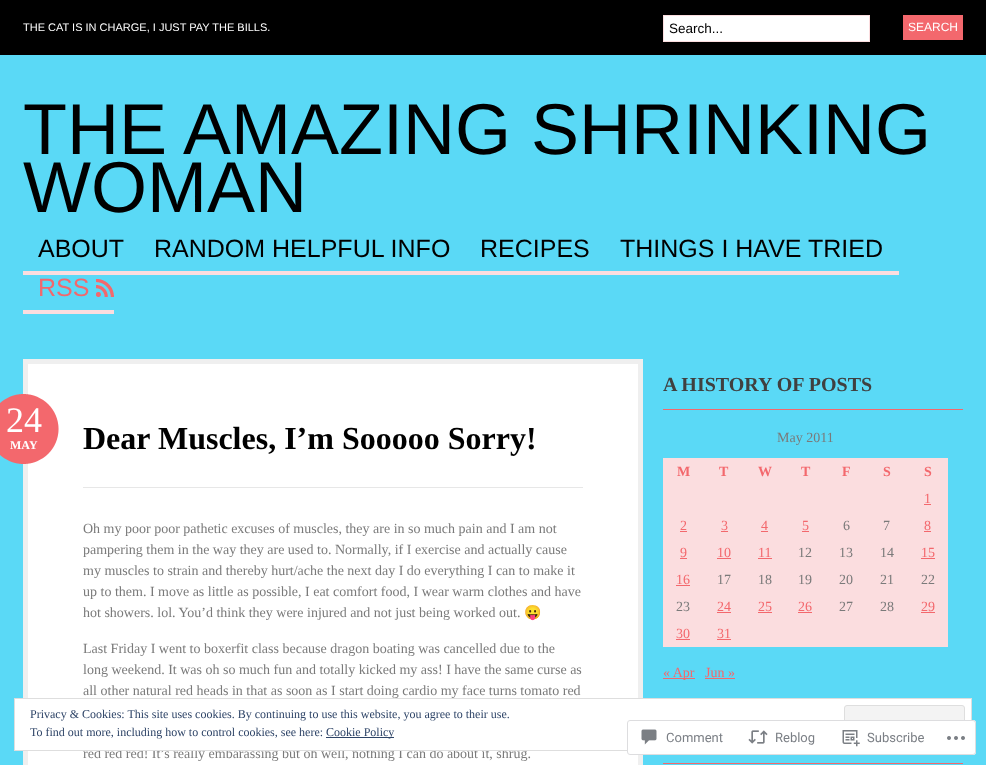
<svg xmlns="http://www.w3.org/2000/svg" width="986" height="765">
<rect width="100%" height="100%" fill="#5ad9f6"/>
<rect width="986" height="55" fill="#000"/>
<text x="23" y="31" style="font-family:Liberation Sans;font-size:11px;fill:#fff">THE CAT IS IN CHARGE, I JUST PAY THE BILLS.</text>
<rect x="663.5" y="15.5" width="206" height="26" fill="#fff" stroke="#fbdddf"/>
<text x="669" y="33" style="font-family:Liberation Sans;font-size:13.5px;fill:#000">Search...</text>
<rect x="903" y="15" width="60" height="25" fill="#f3686d"/>
<text x="908" y="31" style="font-family:Liberation Sans;font-size:12px;fill:#fff">SEARCH</text>
<text x="23" y="154" style="font-family:Liberation Sans;font-size:72px;fill:#000">THE AMAZING SHRINKING</text>
<text x="23" y="212" style="font-family:Liberation Sans;font-size:72px;fill:#000">WOMAN</text>
<rect x="23" y="271" width="876" height="4" fill="#fbdddf"/>
<text x="38" y="257" style="font-family:Liberation Sans;font-size:25px;fill:#000">ABOUT</text>
<text x="154" y="257" style="font-family:Liberation Sans;font-size:25px;fill:#000">RANDOM HELPFUL INFO</text>
<text x="480" y="257" style="font-family:Liberation Sans;font-size:25px;fill:#000">RECIPES</text>
<text x="620" y="257" style="font-family:Liberation Sans;font-size:25px;fill:#000">THINGS I HAVE TRIED</text>
<image x="96" y="279" width="18" height="18" href="media/1.png"/>
<rect x="23" y="310" width="91" height="4" fill="#fbdddf"/>
<text x="38" y="296" style="font-family:Liberation Sans;font-size:25px;fill:#f3686d">RSS</text>
<rect x="25.5" y="361.5" width="615" height="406" fill="#fff" stroke="#efefef" stroke-width="5"/>
<image x="0" y="394" width="59" height="70" href="media/2.png"/>
<text x="6" y="432" style="font-family:Liberation Serif;font-size:36px;fill:#fff">24</text>
<text x="10" y="449" style="font-family:Liberation Serif;font-size:12px;font-weight:bold;fill:#fff">MAY</text>
<rect x="83" y="487" width="500" height="1" fill="#e7e7e7"/>
<text x="83" y="449" style="font-family:Liberation Serif;font-size:32px;font-weight:bold;fill:#000">Dear Muscles, I’m Sooooo Sorry!</text>
<text x="83" y="533" style="font-family:Liberation Serif;font-size:14px;fill:#7a7a7a">Oh my poor poor pathetic excuses of muscles, they are in so much pain and I am not</text>
<text x="83" y="554" style="font-family:Liberation Serif;font-size:14px;fill:#7a7a7a">pampering them in the way they are used to. Normally, if I exercise and actually cause</text>
<text x="83" y="575" style="font-family:Liberation Serif;font-size:14px;fill:#7a7a7a">my muscles to strain and thereby hurt/ache the next day I do everything I can to make it</text>
<text x="83" y="596" style="font-family:Liberation Serif;font-size:14px;fill:#7a7a7a">up to them. I move as little as possible, I eat comfort food, I wear warm clothes and have</text>
<text x="83" y="617" style="font-family:Liberation Serif;font-size:14px;fill:#7a7a7a">hot showers. lol. You’d think they were injured and not just being worked out.</text>
<text x="524" y="617" style="font-family:Noto Color Emoji;font-size:14px;fill:#7a7a7a">😛</text>
<text x="83" y="653" style="font-family:Liberation Serif;font-size:14px;fill:#7a7a7a">Last Friday I went to boxerfit class because dragon boating was cancelled due to the</text>
<text x="83" y="674" style="font-family:Liberation Serif;font-size:14px;fill:#7a7a7a">long weekend. It was oh so much fun and totally kicked my ass! I have the same curse as</text>
<text x="83" y="695" style="font-family:Liberation Serif;font-size:14px;fill:#7a7a7a">all other natural red heads in that as soon as I start doing cardio my face turns tomato red</text>
<text x="83" y="758" style="font-family:Liberation Serif;font-size:14px;fill:#7a7a7a">red red red! It’s really embarassing but oh well, nothing I can do about it, shrug.</text>
<rect x="663" y="409" width="300" height="1" fill="#f3686d"/>
<text x="663" y="391" style="font-family:Liberation Serif;font-size:20px;font-weight:bold;fill:#404040">A HISTORY OF POSTS</text>
<text x="777" y="442" style="font-family:Liberation Serif;font-size:14px;fill:#7a7a7a">May 2011</text>
<rect x="663" y="458" width="285" height="27" fill="#fbdddf"/>
<text x="677" y="476" style="font-family:Liberation Serif;font-size:14px;font-weight:bold;fill:#f3686d">M</text>
<text x="719" y="476" style="font-family:Liberation Serif;font-size:14px;font-weight:bold;fill:#f3686d">T</text>
<text x="758" y="476" style="font-family:Liberation Serif;font-size:14px;font-weight:bold;fill:#f3686d">W</text>
<text x="801" y="476" style="font-family:Liberation Serif;font-size:14px;font-weight:bold;fill:#f3686d">T</text>
<text x="842" y="476" style="font-family:Liberation Serif;font-size:14px;font-weight:bold;fill:#f3686d">F</text>
<text x="883" y="476" style="font-family:Liberation Serif;font-size:14px;font-weight:bold;fill:#f3686d">S</text>
<text x="924" y="476" style="font-family:Liberation Serif;font-size:14px;font-weight:bold;fill:#f3686d">S</text>
<rect x="663" y="485" width="285" height="27" fill="#fbdddf"/>
<text x="924" y="503" style="font-family:Liberation Serif;font-size:14px;fill:#f3686d">1</text>
<rect x="924" y="504" width="7" height="1" fill="#f3686d"/>
<rect x="663" y="512" width="285" height="27" fill="#fbdddf"/>
<text x="680" y="530" style="font-family:Liberation Serif;font-size:14px;fill:#f3686d">2</text>
<rect x="680" y="531" width="7" height="1" fill="#f3686d"/>
<text x="721" y="530" style="font-family:Liberation Serif;font-size:14px;fill:#f3686d">3</text>
<rect x="721" y="531" width="7" height="1" fill="#f3686d"/>
<text x="761" y="530" style="font-family:Liberation Serif;font-size:14px;fill:#f3686d">4</text>
<rect x="761" y="531" width="7" height="1" fill="#f3686d"/>
<text x="802" y="530" style="font-family:Liberation Serif;font-size:14px;fill:#f3686d">5</text>
<rect x="802" y="531" width="7" height="1" fill="#f3686d"/>
<text x="843" y="530" style="font-family:Liberation Serif;font-size:14px;fill:#7a7a7a">6</text>
<text x="883" y="530" style="font-family:Liberation Serif;font-size:14px;fill:#7a7a7a">7</text>
<text x="924" y="530" style="font-family:Liberation Serif;font-size:14px;fill:#f3686d">8</text>
<rect x="924" y="531" width="7" height="1" fill="#f3686d"/>
<rect x="663" y="539" width="285" height="27" fill="#fbdddf"/>
<text x="680" y="557" style="font-family:Liberation Serif;font-size:14px;fill:#f3686d">9</text>
<rect x="680" y="558" width="7" height="1" fill="#f3686d"/>
<text x="717" y="557" style="font-family:Liberation Serif;font-size:14px;fill:#f3686d">10</text>
<rect x="717" y="558" width="14" height="1" fill="#f3686d"/>
<text x="758" y="557" style="font-family:Liberation Serif;font-size:14px;fill:#f3686d">11</text>
<rect x="758" y="558" width="14" height="1" fill="#f3686d"/>
<text x="798" y="557" style="font-family:Liberation Serif;font-size:14px;fill:#7a7a7a">12</text>
<text x="839" y="557" style="font-family:Liberation Serif;font-size:14px;fill:#7a7a7a">13</text>
<text x="880" y="557" style="font-family:Liberation Serif;font-size:14px;fill:#7a7a7a">14</text>
<text x="921" y="557" style="font-family:Liberation Serif;font-size:14px;fill:#f3686d">15</text>
<rect x="921" y="558" width="14" height="1" fill="#f3686d"/>
<rect x="663" y="566" width="285" height="27" fill="#fbdddf"/>
<text x="676" y="584" style="font-family:Liberation Serif;font-size:14px;fill:#f3686d">16</text>
<rect x="676" y="585" width="14" height="1" fill="#f3686d"/>
<text x="717" y="584" style="font-family:Liberation Serif;font-size:14px;fill:#7a7a7a">17</text>
<text x="758" y="584" style="font-family:Liberation Serif;font-size:14px;fill:#7a7a7a">18</text>
<text x="798" y="584" style="font-family:Liberation Serif;font-size:14px;fill:#7a7a7a">19</text>
<text x="839" y="584" style="font-family:Liberation Serif;font-size:14px;fill:#7a7a7a">20</text>
<text x="880" y="584" style="font-family:Liberation Serif;font-size:14px;fill:#7a7a7a">21</text>
<text x="921" y="584" style="font-family:Liberation Serif;font-size:14px;fill:#7a7a7a">22</text>
<rect x="663" y="593" width="285" height="27" fill="#fbdddf"/>
<text x="676" y="611" style="font-family:Liberation Serif;font-size:14px;fill:#7a7a7a">23</text>
<text x="717" y="611" style="font-family:Liberation Serif;font-size:14px;fill:#f3686d">24</text>
<rect x="717" y="612" width="14" height="1" fill="#f3686d"/>
<text x="758" y="611" style="font-family:Liberation Serif;font-size:14px;fill:#f3686d">25</text>
<rect x="758" y="612" width="14" height="1" fill="#f3686d"/>
<text x="798" y="611" style="font-family:Liberation Serif;font-size:14px;fill:#f3686d">26</text>
<rect x="798" y="612" width="14" height="1" fill="#f3686d"/>
<text x="839" y="611" style="font-family:Liberation Serif;font-size:14px;fill:#7a7a7a">27</text>
<text x="880" y="611" style="font-family:Liberation Serif;font-size:14px;fill:#7a7a7a">28</text>
<text x="921" y="611" style="font-family:Liberation Serif;font-size:14px;fill:#f3686d">29</text>
<rect x="921" y="612" width="14" height="1" fill="#f3686d"/>
<rect x="663" y="620" width="285" height="27" fill="#fbdddf"/>
<text x="676" y="638" style="font-family:Liberation Serif;font-size:14px;fill:#f3686d">30</text>
<rect x="676" y="639" width="14" height="1" fill="#f3686d"/>
<text x="717" y="638" style="font-family:Liberation Serif;font-size:14px;fill:#f3686d">31</text>
<rect x="717" y="639" width="14" height="1" fill="#f3686d"/>
<rect x="663" y="678" width="32" height="1" fill="#f3686d"/>
<text x="663" y="677" style="font-family:Liberation Serif;font-size:14px;fill:#f3686d">« Apr</text>
<text x="705" y="677" style="font-family:Liberation Serif;font-size:14px;fill:#f3686d">Jun »</text>
<rect x="705" y="678" width="30" height="1" fill="#f3686d"/>
<rect x="663" y="763" width="300" height="1" fill="#f3686d"/>
<rect x="14.5" y="698.5" width="957" height="52" fill="#fff" stroke="#dedede"/>
<text x="30" y="718" style="font-family:Liberation Serif;font-size:12px;fill:#2e4467">Privacy &amp; Cookies: This site uses cookies. By continuing to use this website, you agree to their use.</text>
<rect x="844.5" y="705.5" width="120" height="38" rx="2.5" fill="#f3f3f3" stroke="#dedede"/>
<text x="30" y="736" style="font-family:Liberation Serif;font-size:12px;fill:#2e4467">To find out more, including how to control cookies, see here:</text>
<rect x="326" y="737" width="68" height="1" fill="#2e4467"/>
<text x="326" y="736" style="font-family:Liberation Serif;font-size:12px;fill:#2e4467">Cookie Policy</text>
<rect x="627" y="720" width="349" height="35" rx="3" fill="#fffffffa"/>
<rect x="627.5" y="720.5" width="348" height="34" rx="2.5" fill="none" stroke="#dcdcdefa"/>
<image x="641" y="729" width="16" height="16" href="media/3.png"/>
<text x="666" y="742" style="font-family:Roboto;font-size:13px;fill:#7b7f85">Comment</text>
<image x="748" y="730" width="20" height="14" href="media/4.png"/>
<text x="775" y="742" style="font-family:Roboto;font-size:13px;fill:#7b7f85">Reblog</text>
<image x="842" y="730" width="18" height="17" href="media/5.png"/>
<text x="867" y="742" style="font-family:Roboto;font-size:13px;fill:#7b7f85">Subscribe</text>
<image x="947" y="736" width="18" height="4" href="media/6.png"/>
</svg>
